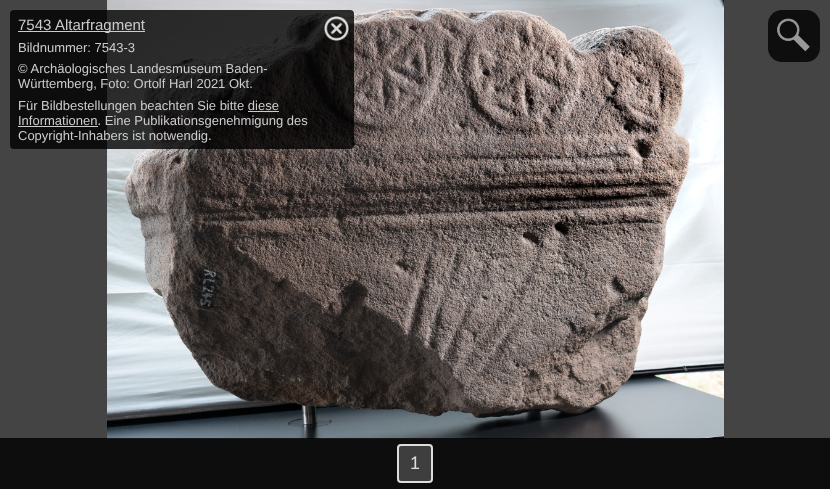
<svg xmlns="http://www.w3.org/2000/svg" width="830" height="489">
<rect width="100%" height="100%" fill="#444"/>
<image x="107" y="0" width="617" height="439" href="media/1.png"/>
<rect x="768" y="10" width="52" height="52" rx="14" fill="#0e0e0e"/>
<image x="777" y="18" width="33" height="34" href="media/2.png"/>
<rect x="10" y="10" width="344" height="139" rx="4" fill="#000000cc"/>
<text x="18" y="30" style="font-family:Liberation Sans;font-size:15px;fill:#ccc">7543</text>
<rect x="18" y="31" width="127" height="1" fill="#ccc"/>
<text x="55" y="30" style="font-family:Liberation Sans;font-size:15px;fill:#ccc">Altarfragment</text>
<image x="324" y="16" width="25" height="25" href="media/3.png"/>
<text x="18" y="52" style="font-family:Liberation Sans;font-size:13px;fill:#ccc">Bildnummer: 7543-3</text>
<text x="18" y="73" style="font-family:Liberation Sans;font-size:13px;fill:#ccc">© Archäologisches Landesmuseum Baden-</text>
<text x="18" y="88" style="font-family:Liberation Sans;font-size:13px;fill:#ccc">Württemberg, Foto: Ortolf Harl 2021 Okt.</text>
<text x="18" y="110" style="font-family:Liberation Sans;font-size:13px;fill:#ccc">Für Bildbestellungen beachten Sie bitte diese</text>
<rect x="18" y="126" width="80" height="1" fill="#ccc"/>
<text x="18" y="125" style="font-family:Liberation Sans;font-size:13px;fill:#ccc">Informationen. Eine Publikationsgenehmigung des</text>
<rect x="248" y="111" width="31" height="1" fill="#ccc"/>
<text x="18" y="140" style="font-family:Liberation Sans;font-size:13px;fill:#ccc">Copyright-Inhabers ist notwendig.</text>
<rect y="438" width="830" height="51" fill="#000000cc"/>
<rect x="398" y="445" width="34" height="37" rx="3" fill="#3e3e3e" stroke="#ddd" stroke-width="2"/>
<text x="410" y="469" style="font-family:Liberation Sans;font-size:18px;fill:#ddd">1</text>
</svg>
